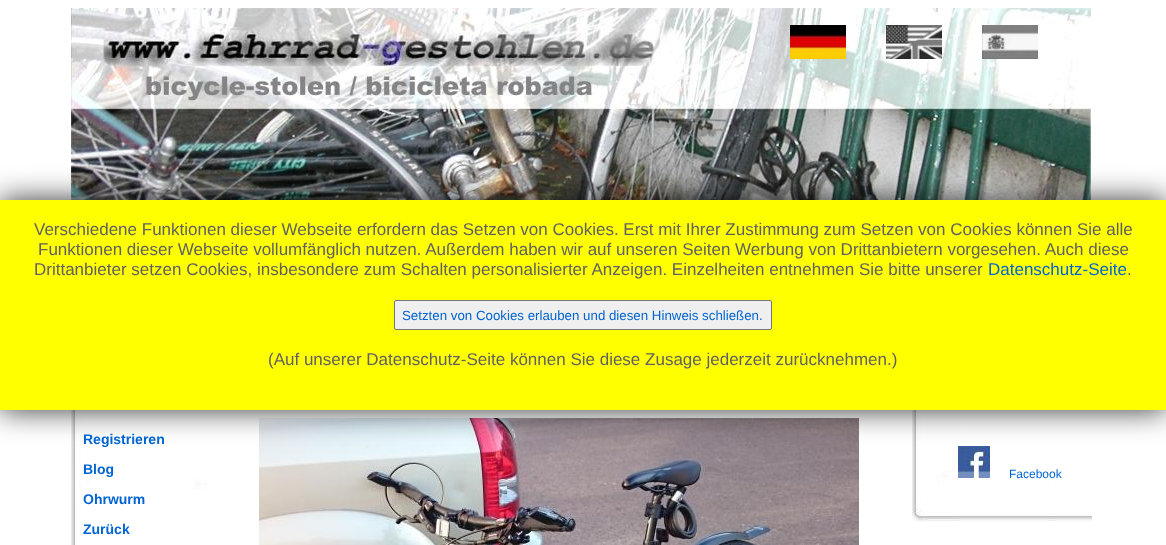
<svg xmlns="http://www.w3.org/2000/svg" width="1166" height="545">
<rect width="100%" height="100%" fill="#fff"/>
<image x="71" y="8" width="1020" height="192" href="media/1.png"/>
<image x="790" y="25" width="56" height="34" href="media/2.png"/>
<image x="886" y="25" width="56" height="34" href="media/3.png"/>
<image x="982" y="25" width="56" height="34" href="media/4.png"/>
<image x="259" y="418" width="600" height="127" href="media/5.png"/>
<image x="71" y="410" width="138" height="135" href="media/6.png"/>
<image x="912" y="410" width="180" height="112" href="media/7.png"/>
<image x="958" y="446" width="32" height="32" href="media/8.png"/>
<rect y="200" width="1166" height="210" fill="#000000cc" filter="blur(15px)"/>
<rect y="200" width="1166" height="210" fill="#ff0"/>
<text x="34" y="235" style="font-family:Liberation Sans;font-size:17px;fill:#616161">Verschiedene Funktionen dieser Webseite erfordern das Setzen von Cookies. Erst mit Ihrer Zustimmung zum Setzen von Cookies können Sie alle</text>
<text x="38" y="255" style="font-family:Liberation Sans;font-size:17px;fill:#616161">Funktionen dieser Webseite vollumfänglich nutzen. Außerdem haben wir auf unseren Seiten Werbung von Drittanbietern vorgesehen. Auch diese</text>
<text x="34" y="275" style="font-family:Liberation Sans;font-size:17px;fill:#616161">Drittanbieter setzen Cookies, insbesondere zum Schalten personalisierter Anzeigen. Einzelheiten entnehmen Sie bitte unserer</text>
<text x="988" y="275" style="font-family:Liberation Sans;font-size:17px;fill:#0064d2">Datenschutz-Seite</text>
<text x="1127" y="275" style="font-family:Liberation Sans;font-size:17px;fill:#616161">.</text>
<rect x="394.5" y="300.5" width="377" height="29" rx="1.5" fill="#efefef" stroke="#767676"/>
<text x="402" y="320" style="font-family:Liberation Sans;font-size:13.3px;fill:#0064d2">Setzten von Cookies erlauben und diesen Hinweis schließen.</text>
<text x="268" y="365" style="font-family:Liberation Sans;font-size:17px;fill:#616161">(Auf unserer Datenschutz-Seite können Sie diese Zusage jederzeit zurücknehmen.)</text>
<text x="83" y="444" style="font-family:Liberation Sans;font-size:14px;font-weight:bold;fill:#0064d2">Registrieren</text>
<text x="83" y="474" style="font-family:Liberation Sans;font-size:14px;font-weight:bold;fill:#0064d2">Blog</text>
<text x="83" y="504" style="font-family:Liberation Sans;font-size:14px;font-weight:bold;fill:#0064d2">Ohrwurm</text>
<text x="83" y="534" style="font-family:Liberation Sans;font-size:14px;font-weight:bold;fill:#0064d2">Zurück</text>
<text x="1009" y="478" style="font-family:Liberation Sans;font-size:12px;fill:#0064d2">Facebook</text>
</svg>
